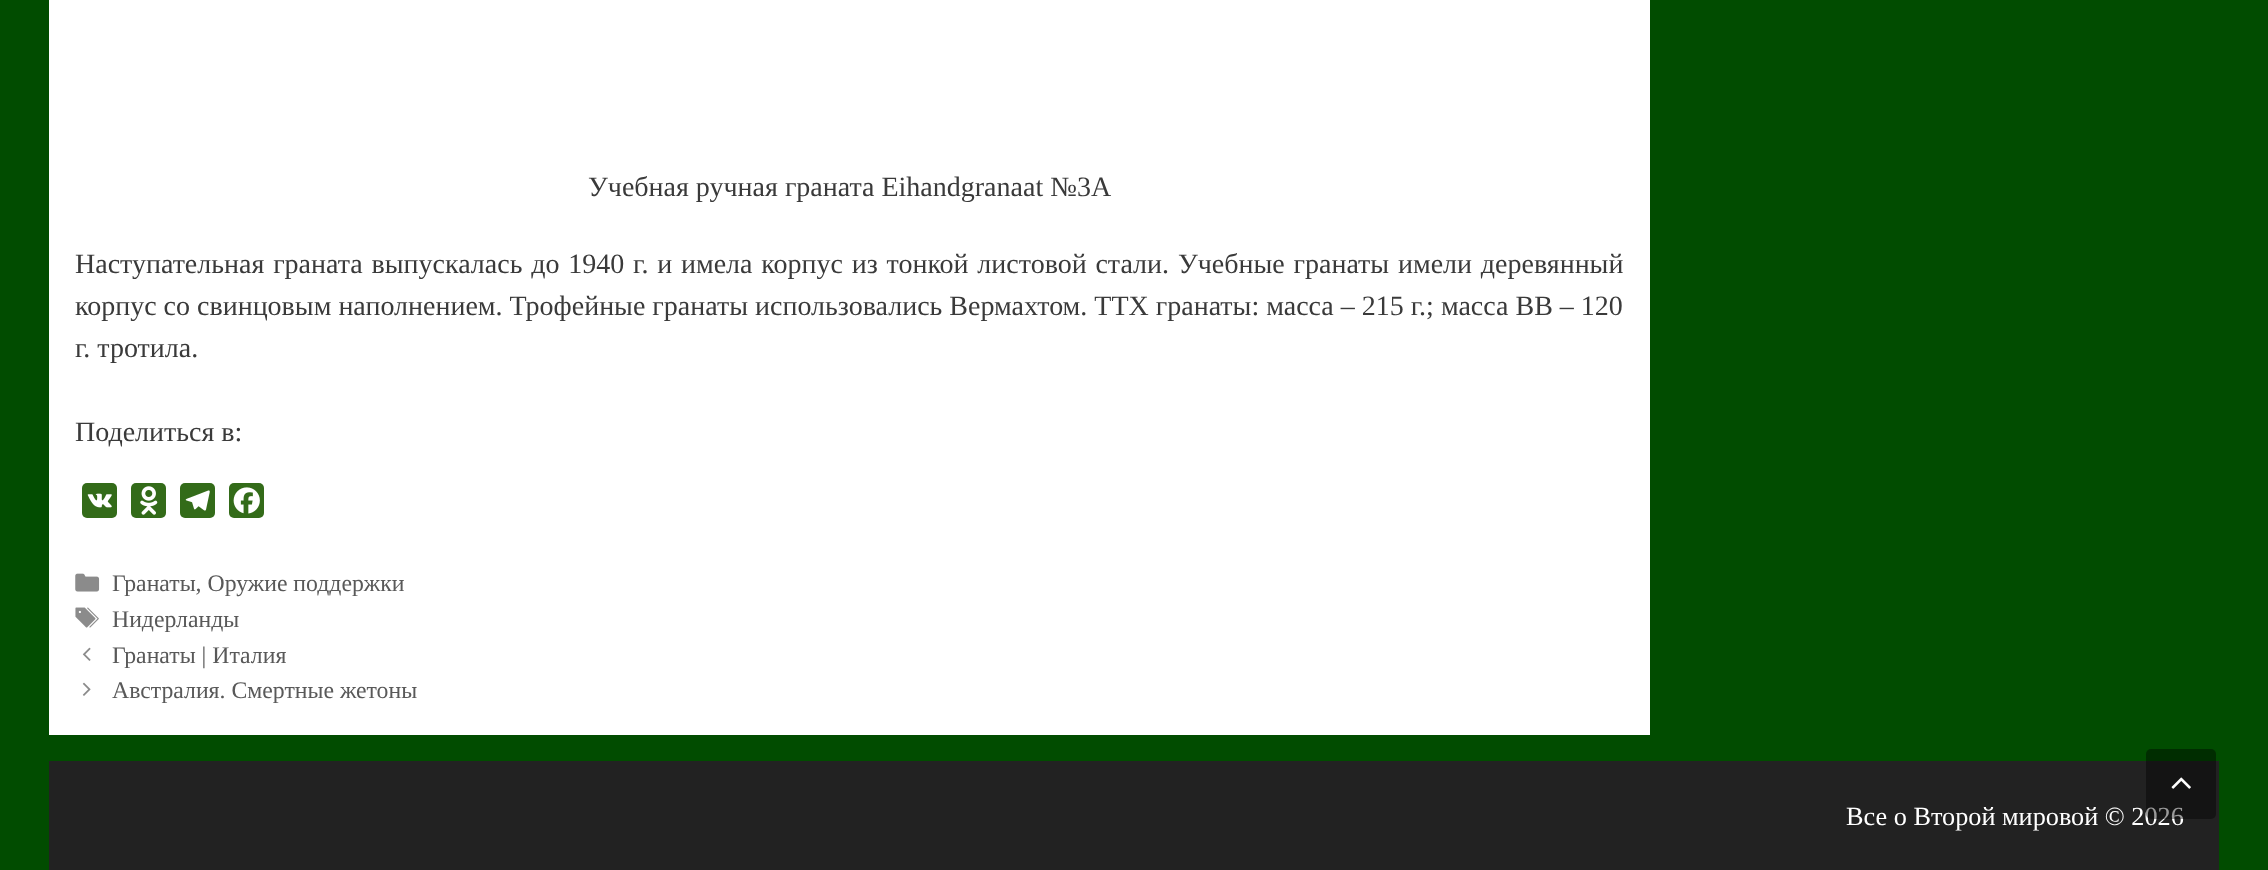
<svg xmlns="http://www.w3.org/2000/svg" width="2268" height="870">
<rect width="100%" height="100%" fill="#014c00"/>
<rect x="49" width="1601" height="735" fill="#fff"/>
<text x="588" y="196" style="font-family:Liberation Serif;font-size:28px;fill:#3a3a3a">Учебная ручная граната Eihandgranaat №3А</text>
<text x="75" y="273" word-spacing="1.8" style="font-family:Liberation Serif;font-size:28px;fill:#3a3a3a">Наступательная граната выпускалась до 1940 г. и имела корпус из тонкой листовой стали. Учебные гранаты имели деревянный</text>
<text x="75" y="315" style="font-family:Liberation Serif;font-size:28px;fill:#3a3a3a">корпус со свинцовым наполнением. Трофейные гранаты использовались Вермахтом. ТТХ гранаты: масса – 215 г.; масса ВВ – 120</text>
<text x="75" y="357" style="font-family:Liberation Serif;font-size:28px;fill:#3a3a3a">г. тротила.</text>
<text x="75" y="441" style="font-family:Liberation Serif;font-size:28px;fill:#3a3a3a">Поделиться в:</text>
<rect x="82" y="483" width="35" height="35" rx="5" fill="#336b19"/>
<image x="87" y="493" width="25" height="15" href="media/1.png"/>
<rect x="131" y="483" width="35" height="35" rx="5" fill="#336b19"/>
<image x="140" y="486" width="18" height="29" href="media/2.png"/>
<rect x="180" y="483" width="35" height="35" rx="5" fill="#336b19"/>
<image x="185" y="490" width="25" height="21" href="media/3.png"/>
<rect x="229" y="483" width="35" height="35" rx="5" fill="#336b19"/>
<image x="233" y="487" width="27" height="27" href="media/4.png"/>
<image x="75" y="573" width="25" height="19" href="media/5.png"/>
<text x="112" y="591" style="font-family:Liberation Serif;font-size:23.75px;fill:#595959">Гранаты, Оружие поддержки</text>
<image x="75" y="607" width="24" height="21" href="media/6.png"/>
<text x="112" y="627" style="font-family:Liberation Serif;font-size:23.75px;fill:#595959">Нидерланды</text>
<image x="82" y="647" width="9" height="14" href="media/7.png"/>
<text x="112" y="663" style="font-family:Liberation Serif;font-size:23.75px;fill:#595959">Гранаты | Италия</text>
<image x="82" y="682" width="9" height="14" href="media/8.png"/>
<text x="112" y="698" style="font-family:Liberation Serif;font-size:23.75px;fill:#595959">Австралия. Смертные жетоны</text>
<rect x="49" y="761" width="2170" height="109" fill="#222"/>
<text x="1846" y="825" style="font-family:Liberation Serif;font-size:26.25px;fill:#fff">Все о Второй мировой © 2026</text>
<rect x="2146" y="749" width="70" height="70" rx="5" fill="#00000066"/>
<image x="2171" y="777" width="20" height="12" href="media/9.png"/>
</svg>
